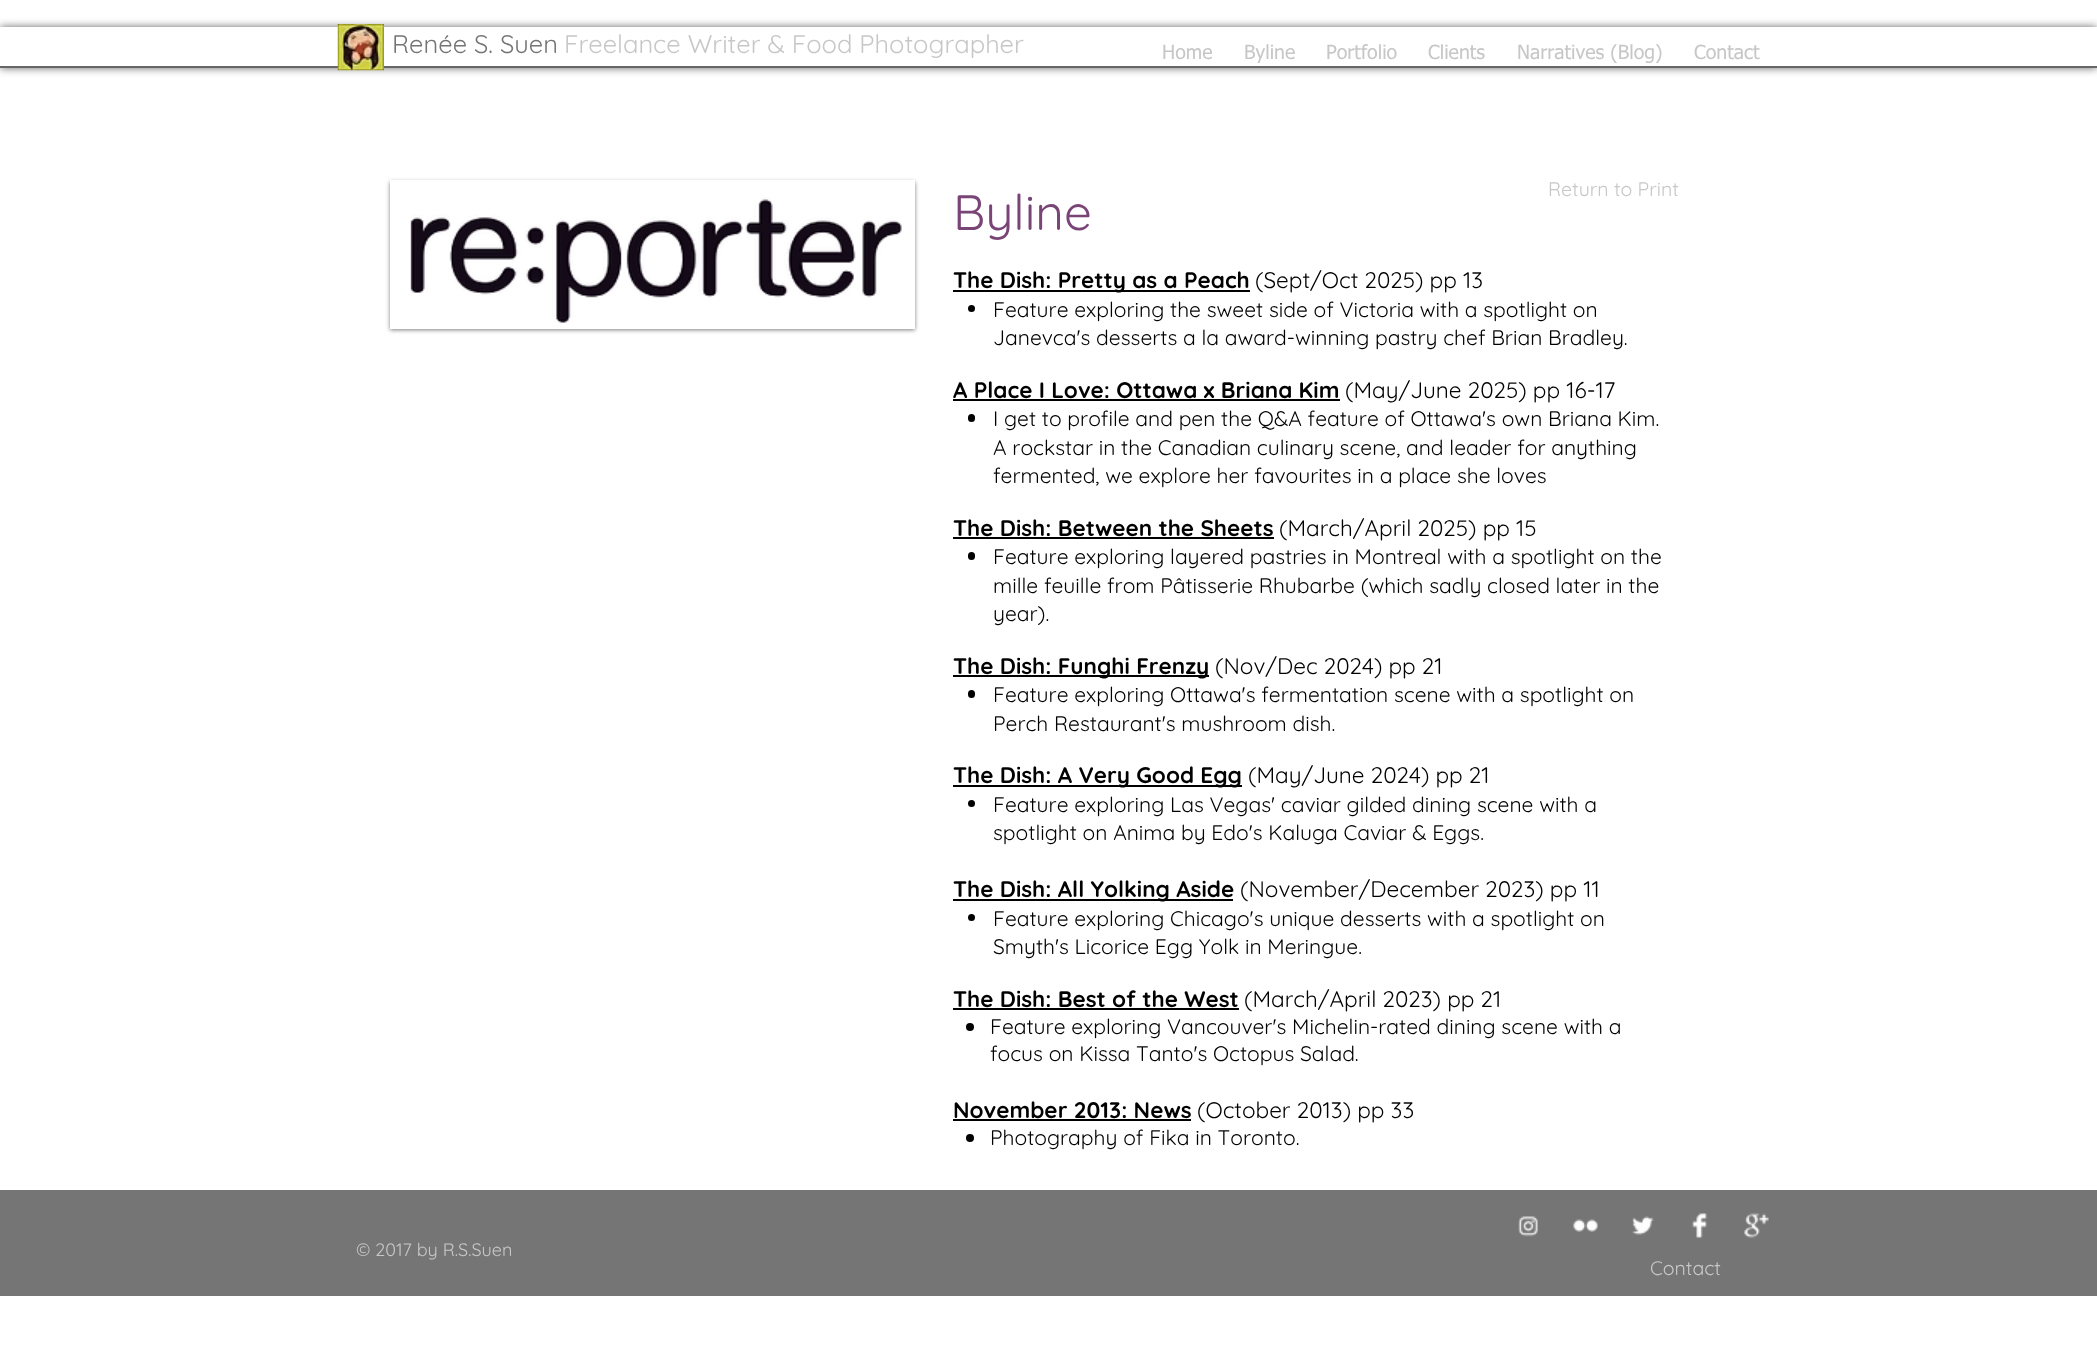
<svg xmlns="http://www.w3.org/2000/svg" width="2097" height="1365">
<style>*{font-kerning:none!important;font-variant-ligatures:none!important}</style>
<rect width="100%" height="100%" fill="#fff"/>
<rect y="27" width="2097" height="41" fill="#00000099" filter="blur(4px)"/>
<rect y="27" width="2097" height="39" fill="#fff"/>
<rect y="66" width="2097" height="2" fill="#666"/>
<image x="337" y="24" width="47" height="47" href="media/1.png"/>
<text x="392" y="53" style="font-family:Quicksand;font-size:25.5px;fill:#757575">Renée S. Suen</text>
<text x="564" y="53" style="font-family:Quicksand;font-size:25.5px;fill:#c7c7c7">Freelance Writer &amp; Food Photographer</text>
<text x="1162" y="59" style="font-family:tahoma;font-size:19.5px;fill:#c7c7c7">Home</text>
<text x="1244" y="59" style="font-family:tahoma;font-size:19.5px;fill:#c7c7c7">Byline</text>
<text x="1326" y="59" style="font-family:tahoma;font-size:19.5px;fill:#c7c7c7">Portfolio</text>
<text x="1428" y="59" style="font-family:tahoma;font-size:19.5px;fill:#c7c7c7">Clients</text>
<text x="1517" y="59" style="font-family:tahoma;font-size:19.5px;fill:#c7c7c7">Narratives (Blog)</text>
<text x="1694" y="59" style="font-family:tahoma;font-size:19.5px;fill:#c7c7c7">Contact</text>
<rect x="390" y="182" width="525" height="148" fill="#00000080" filter="blur(2px)"/>
<rect x="390" y="180" width="525" height="149" fill="#fff"/>
<image x="410" y="197" width="492" height="126" href="media/2.png"/>
<text x="1548" y="196" style="font-family:Quicksand;font-size:19.5px;fill:#c7c7c7">Return to Print</text>
<text x="953" y="230" style="font-family:Quicksand;font-size:49.5px;fill:#794577">Byline</text>
<rect x="953" y="290" width="297" height="2" fill="#000"/>
<text x="953" y="288" style="font-family:Quicksand;font-size:22.5px;font-weight:bold;fill:#000">The Dish: Pretty as a Peach</text>
<text x="1255" y="288" style="font-family:Quicksand;font-size:22.5px;fill:#000">(Sept/Oct 2025) pp 13</text>
<circle cx="971.5" cy="308.5" r="3.5" fill="#000"/>
<text x="993" y="317" style="font-family:Quicksand;font-size:21px;fill:#000">Feature exploring the sweet side of Victoria with a spotlight on</text>
<text x="993" y="345" style="font-family:Quicksand;font-size:21px;fill:#000">Janevca's desserts a la award-winning pastry chef Brian Bradley.</text>
<text x="953" y="398" style="font-family:Quicksand;font-size:22.5px;font-weight:bold;fill:#000">A Place I Love: Ottawa x Briana Kim</text>
<rect x="953" y="399" width="387" height="2" fill="#000"/>
<text x="1345" y="398" style="font-family:Quicksand;font-size:22.5px;fill:#000">(May/June 2025) pp 16-17</text>
<rect x="968" y="414" width="7" height="8" rx="3.5" fill="#000"/>
<text x="993" y="426" style="font-family:Quicksand;font-size:21px;fill:#000">I get to profile and pen the Q&amp;A feature of Ottawa's own Briana Kim.</text>
<text x="993" y="455" style="font-family:Quicksand;font-size:21px;fill:#000">A rockstar in the Canadian culinary scene, and leader for anything</text>
<text x="993" y="483" style="font-family:Quicksand;font-size:21px;fill:#000">fermented, we explore her favourites in a place she loves</text>
<text x="953" y="536" style="font-family:Quicksand;font-size:22.5px;font-weight:bold;fill:#000">The Dish: Between the Sheets</text>
<rect x="953" y="537" width="321" height="2" fill="#000"/>
<text x="1279" y="536" style="font-family:Quicksand;font-size:22.5px;fill:#000">(March/April 2025) pp 15</text>
<rect x="968" y="552" width="7" height="8" rx="3.5" fill="#000"/>
<text x="993" y="564" style="font-family:Quicksand;font-size:21px;fill:#000">Feature exploring layered pastries in Montreal with a spotlight on the</text>
<text x="993" y="593" style="font-family:Quicksand;font-size:21px;fill:#000">mille feuille from Pâtisserie Rhubarbe (which sadly closed later in the</text>
<text x="993" y="621" style="font-family:Quicksand;font-size:21px;fill:#000">year).</text>
<rect x="953" y="675" width="256" height="2" fill="#000"/>
<text x="953" y="674" style="font-family:Quicksand;font-size:22.5px;font-weight:bold;fill:#000">The Dish: Funghi Frenzy</text>
<text x="1215" y="674" style="font-family:Quicksand;font-size:22.5px;fill:#000">(Nov/Dec 2024) pp 21</text>
<rect x="968" y="690" width="7" height="8" rx="3.5" fill="#000"/>
<text x="993" y="702" style="font-family:Quicksand;font-size:21px;fill:#000">Feature exploring Ottawa's fermentation scene with a spotlight on</text>
<text x="993" y="731" style="font-family:Quicksand;font-size:21px;fill:#000">Perch Restaurant's mushroom dish.</text>
<rect x="953" y="785" width="289" height="2" fill="#000"/>
<text x="953" y="783" style="font-family:Quicksand;font-size:22.5px;font-weight:bold;fill:#000">The Dish: A Very Good Egg</text>
<text x="1248" y="783" style="font-family:Quicksand;font-size:22.5px;fill:#000">(May/June 2024) pp 21</text>
<circle cx="971.5" cy="803.5" r="3.5" fill="#000"/>
<text x="993" y="812" style="font-family:Quicksand;font-size:21px;fill:#000">Feature exploring Las Vegas' caviar gilded dining scene with a</text>
<text x="993" y="840" style="font-family:Quicksand;font-size:21px;fill:#000">spotlight on Anima by Edo's Kaluga Caviar &amp; Eggs.</text>
<rect x="953" y="899" width="280" height="2" fill="#000"/>
<text x="953" y="897" style="font-family:Quicksand;font-size:22.5px;font-weight:bold;fill:#000">The Dish: All Yolking Aside</text>
<text x="1240" y="897" style="font-family:Quicksand;font-size:22.5px;fill:#000">(November/December 2023) pp 11</text>
<circle cx="971.5" cy="917.5" r="3.5" fill="#000"/>
<text x="993" y="926" style="font-family:Quicksand;font-size:21px;fill:#000">Feature exploring Chicago's unique desserts with a spotlight on</text>
<text x="993" y="954" style="font-family:Quicksand;font-size:21px;fill:#000">Smyth's Licorice Egg Yolk in Meringue.</text>
<text x="953" y="1007" style="font-family:Quicksand;font-size:22.5px;font-weight:bold;fill:#000">The Dish: Best of the West</text>
<rect x="953" y="1008" width="286" height="2" fill="#000"/>
<text x="1244" y="1007" style="font-family:Quicksand;font-size:22.5px;fill:#000">(March/April 2023) pp 21</text>
<circle cx="970" cy="1027" r="4" fill="#000"/>
<text x="990" y="1034" style="font-family:Quicksand;font-size:21px;fill:#000">Feature exploring Vancouver's Michelin-rated dining scene with a</text>
<text x="990" y="1061" style="font-family:Quicksand;font-size:21px;fill:#000">focus on Kissa Tanto's Octopus Salad.</text>
<text x="953" y="1118" style="font-family:Quicksand;font-size:22.5px;font-weight:bold;fill:#000">November 2013: News</text>
<rect x="953" y="1119" width="238" height="2" fill="#000"/>
<text x="1197" y="1118" style="font-family:Quicksand;font-size:22.5px;fill:#000">(October 2013) pp 33</text>
<circle cx="970" cy="1138" r="4" fill="#000"/>
<text x="990" y="1145" style="font-family:Quicksand;font-size:21px;fill:#000">Photography of Fika in Toronto.</text>
<rect y="1190" width="2097" height="106" fill="#757575"/>
<image x="1518" y="1216" width="20" height="21" href="media/3.png"/>
<image x="1573" y="1219" width="25" height="13" href="media/4.png"/>
<image x="1632" y="1216" width="22" height="19" href="media/5.png"/>
<image x="1692" y="1213" width="16" height="25" href="media/6.png"/>
<image x="1744" y="1213" width="25" height="25" href="media/7.png"/>
<text x="356" y="1256" style="font-family:Quicksand;font-size:18px;fill:#c7c7c7">© 2017 by R.S.Suen</text>
<text x="1650" y="1275" style="font-family:Quicksand;font-size:19.5px;fill:#c7c7c7">Contact</text>
</svg>
